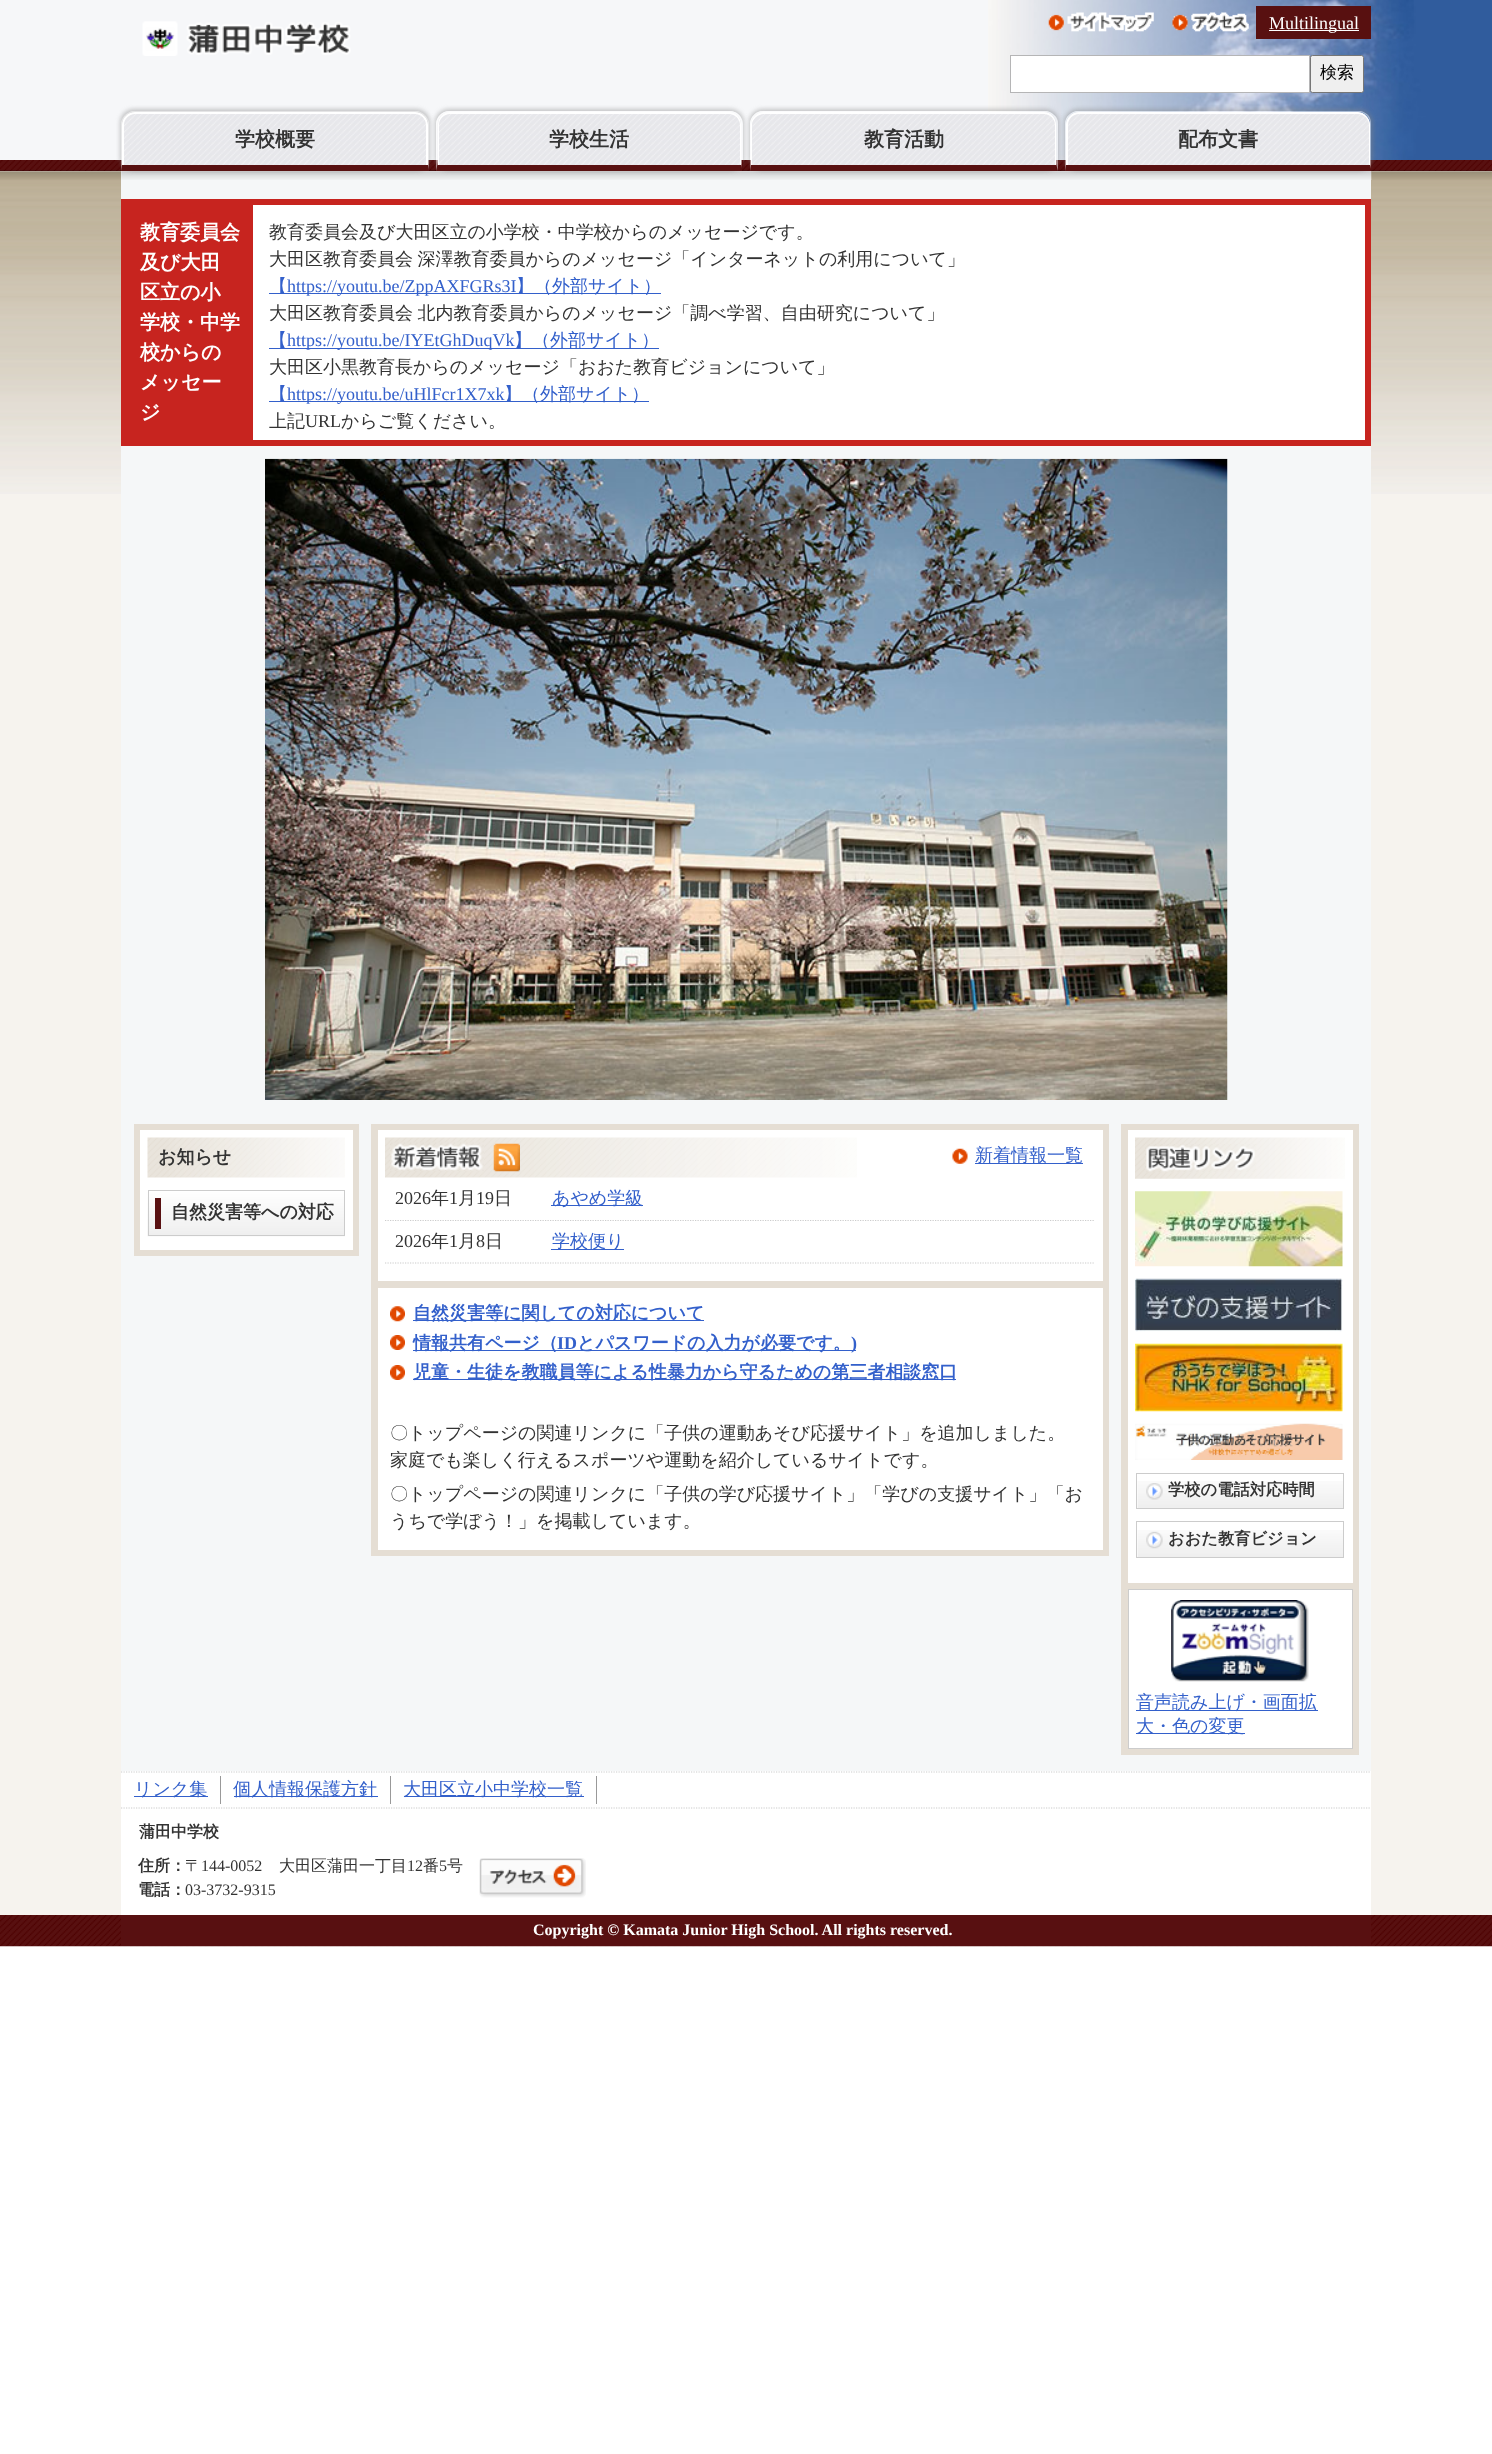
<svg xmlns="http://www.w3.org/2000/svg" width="1492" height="2454">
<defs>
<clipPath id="clip1"><path d="M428 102h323v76h-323zm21 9h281c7 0 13 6 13 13v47h-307v-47c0-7 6-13 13-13z" clip-rule="evenodd"/></clipPath>
<clipPath id="clip2"><path d="M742 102h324v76h-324zm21 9h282c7 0 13 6 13 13v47h-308v-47c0-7 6-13 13-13z" clip-rule="evenodd"/></clipPath>
<clipPath id="clip3"><path d="M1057 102h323v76h-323zm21 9h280c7 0 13 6 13 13v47h-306v-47c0-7 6-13 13-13z" clip-rule="evenodd"/></clipPath>
</defs>
<rect width="100%" height="100%" fill="#fff"/>
<rect width="988" height="160" fill="#f6f7f9"/>
<image x="988" y="0" width="504" height="160" href="media/1.png"/>
<image x="0" y="160" width="1492" height="11" href="media/2.png"/>
<image x="142" y="21" width="209" height="35" href="media/3.png"/>
<image x="1048" y="12" width="106" height="20" href="media/4.png"/>
<image x="1172" y="12" width="77" height="20" href="media/5.png"/>
<rect x="1256" y="6" width="115" height="33" fill="#581010"/>
<rect x="1269" y="30" width="90" height="1" fill="#fff"/>
<text x="1269" y="29" style="font-family:Liberation Serif;font-size:18px;fill:#fff">Multilingual</text>
<rect x="1010.5" y="55.5" width="299" height="37" fill="#fff" stroke="#b5b5b6"/>
<rect x="1310.5" y="55.5" width="53" height="37" rx="2" fill="#efefef" stroke="#767676"/>
<text x="1320" y="78" style="font-family:WenQuanYi Zen Hei;font-size:17px;font-weight:500;fill:#000">検索</text>
<rect y="171" width="1492" height="1744" fill="#f6f3ee"/>
<image x="0" y="171" width="1492" height="323" href="media/10.png"/>
<rect x="121" y="171" width="1250" height="1600" fill="#f5f7f8"/>
<image x="121" y="171" width="1251" height="9" href="media/11.png"/>
<rect x="120" y="109" width="310" height="62" rx="14" fill="#84848470" filter="blur(2px)"/>
<path d="M134 112c-3 0-6 2-8 4l-1-1c2-2 4-3 7-4h286c3 1 5 2 7 4l-1 1c-2-2-5-4-8-4z" fill="#ffffff80"/>
<path d="M429 171l-1-6v-41c0-3-2-6-4-8l1-1c2 2 3 4 4 7z" fill="#ffffff80"/>
<path d="M429 171h-308l1-6h306z" fill="#581010"/>
<path d="M121 122c1-3 2-5 4-7l1 1c-2 2-4 5-4 8v41l-1 6z" fill="#ffffff80"/>
<image x="122" y="112" width="306" height="53" href="media/6.png"/>
<path d="M135 112h280c7 0 13 6 13 13v40h-306v-40c0-7 6-13 13-13zm0 2h280c6 0 11 5 11 11v40h-302v-40c0-6 5-11 11-11z" fill="#fff" fill-rule="evenodd"/>
<text x="235" y="146" style="font-family:WenQuanYi Zen Hei;font-size:20px;font-weight:bold;fill:#333">学校概要</text>
<g clip-path="url(#clip1)">
<rect x="435" y="109" width="309" height="62" rx="14" fill="#84848470" filter="blur(2px)"/>
</g>
<path d="M449 112c-3 0-6 2-8 4l-1-1c2-2 4-3 7-4h285c3 1 5 2 7 4l-1 1c-2-2-5-4-8-4z" fill="#ffffff80"/>
<path d="M739 115c2 2 3 6 3 9v45l-1-5v-40c0-3-1-6-3-8z" fill="#ffffff80"/>
<path d="M742 169v2h-306l2-9v3h303v-1z" fill="#581010"/>
<path d="M436 122c1-3 2-5 4-7l1 1c-2 2-3 5-3 8v38l-2 9z" fill="#ffffff80"/>
<image x="437" y="112" width="305" height="53" href="media/7.png"/>
<path d="M450 112h279c7 0 12 6 12 13v40h-303v-40c0-7 5-13 12-13zm0 2h279c6 0 11 5 11 11v40h-301v-40c0-6 5-11 11-11z" fill="#fff" fill-rule="evenodd"/>
<text x="549" y="146" style="font-family:WenQuanYi Zen Hei;font-size:20px;font-weight:bold;fill:#333">学校生活</text>
<g clip-path="url(#clip2)">
<rect x="749" y="109" width="310" height="62" rx="14" fill="#84848470" filter="blur(2px)"/>
</g>
<path d="M762 112c-3 0-6 1-8 4v-1c1-2 4-3 6-4h287c3 1 5 2 7 4l-1 1c-2-2-5-4-8-4z" fill="#ffffff80"/>
<path d="M1058 171l-2-7v-40c0-3-1-6-3-8l1-1c2 1 3 3 4 6z" fill="#ffffff80"/>
<path d="M1057 171h-307l1-6h305v-1z" fill="#581010"/>
<path d="M750 124v47l1-6v-41c0-3 1-6 3-8v-1c-3 2-4 6-4 9z" fill="#ffffff80"/>
<image x="751" y="112" width="306" height="53" href="media/8.png"/>
<path d="M764 112h280c7 0 12 6 12 13v40h-305v-40c0-7 6-13 13-13zm0 2h280c6 0 11 5 11 11v40h-303v-40c0-6 6-11 12-11z" fill="#fff" fill-rule="evenodd"/>
<text x="864" y="146" style="font-family:WenQuanYi Zen Hei;font-size:20px;font-weight:bold;fill:#333">教育活動</text>
<g clip-path="url(#clip3)">
<rect x="1064" y="109" width="309" height="62" rx="14" fill="#84848470" filter="blur(2px)"/>
</g>
<path d="M1078 112c-3 0-6 1-9 4v-1c2-2 4-3 7-4h285c3 1 5 2 7 4l-1 1c-2-2-5-4-8-4z" fill="#ffffff80"/>
<path d="M1368 115c2 2 3 5 3 9v46l-1-5v-41c0-3-1-6-3-8z" fill="#ffffff80"/>
<path d="M1371 170v1h-306l1-6h304z" fill="#581010"/>
<path d="M1065 124v47l1-6v-41c0-3 1-6 3-8v-1c-3 2-4 6-4 9z" fill="#ffffff80"/>
<image x="1066" y="112" width="304" height="53" href="media/9.png"/>
<path d="M1079 112h279c6 0 12 6 12 13v40h-304v-40c0-7 6-13 13-13zm0 2h279c6 0 11 5 11 11v40h-301v-40c0-6 5-11 11-11z" fill="#fff" fill-rule="evenodd"/>
<text x="1178" y="146" style="font-family:WenQuanYi Zen Hei;font-size:20px;font-weight:bold;fill:#333">配布文書</text>
<rect x="121" y="199" width="1250" height="247" fill="#c7241f"/>
<text x="140" y="239" style="font-family:WenQuanYi Zen Hei;font-size:20px;font-weight:bold;fill:#fff">教育委員会</text>
<text x="140" y="269" style="font-family:WenQuanYi Zen Hei;font-size:20px;font-weight:bold;fill:#fff">及び大田</text>
<text x="140" y="299" style="font-family:WenQuanYi Zen Hei;font-size:20px;font-weight:bold;fill:#fff">区立の小</text>
<text x="140" y="329" style="font-family:WenQuanYi Zen Hei;font-size:20px;font-weight:bold;fill:#fff">学校・中学</text>
<text x="140" y="359" style="font-family:WenQuanYi Zen Hei;font-size:20px;font-weight:bold;fill:#fff">校からの</text>
<text x="140" y="389" style="font-family:WenQuanYi Zen Hei;font-size:20px;font-weight:bold;fill:#fff">メッセー</text>
<text x="140" y="419" style="font-family:WenQuanYi Zen Hei;font-size:20px;font-weight:bold;fill:#fff">ジ</text>
<rect x="253" y="205" width="1112" height="235" fill="#fff"/>
<text x="269" y="238" style="font-family:WenQuanYi Zen Hei;font-size:18px;font-weight:500;fill:#333">教育委員会及び大田区立の小学校・中学校からのメッセージです。</text>
<text x="269" y="265" word-spacing="-1" style="font-family:WenQuanYi Zen Hei;font-size:18px;font-weight:500;fill:#333">大田区教育委員会 深澤教育委員からのメッセージ「インターネットの利用について」</text>
<rect x="269" y="293" width="392" height="1" fill="#3360cb"/>
<text x="269" y="292" style="font-family:WenQuanYi Zen Hei;font-size:18px;font-weight:500;fill:#3360cb">【</text>
<text x="287" y="292" style="font-family:Liberation Serif;font-size:18px;fill:#3360cb">https://youtu.be/ZppAXFGRs3I</text>
<text x="516" y="292" style="font-family:WenQuanYi Zen Hei;font-size:18px;font-weight:500;fill:#3360cb">】（外部サイト）</text>
<text x="269" y="319" word-spacing="-1" style="font-family:WenQuanYi Zen Hei;font-size:18px;font-weight:500;fill:#333">大田区教育委員会 北内教育委員からのメッセージ「調べ学習、自由研究について」</text>
<rect x="269" y="348" width="390" height="1" fill="#3360cb"/>
<text x="269" y="346" style="font-family:WenQuanYi Zen Hei;font-size:18px;font-weight:500;fill:#3360cb">【</text>
<text x="287" y="346" style="font-family:Liberation Serif;font-size:18px;fill:#3360cb">https://youtu.be/IYEtGhDuqVk</text>
<text x="514" y="346" style="font-family:WenQuanYi Zen Hei;font-size:18px;font-weight:500;fill:#3360cb">】（外部サイト）</text>
<text x="269" y="373" style="font-family:WenQuanYi Zen Hei;font-size:18px;font-weight:500;fill:#333">大田区小黒教育長からのメッセージ「おおた教育ビジョンについて」</text>
<rect x="269" y="401" width="380" height="1" fill="#3360cb"/>
<text x="269" y="400" style="font-family:WenQuanYi Zen Hei;font-size:18px;font-weight:500;fill:#3360cb">【</text>
<text x="287" y="400" style="font-family:Liberation Serif;font-size:18px;fill:#3360cb">https://youtu.be/uHlFcr1X7xk</text>
<text x="504" y="400" style="font-family:WenQuanYi Zen Hei;font-size:18px;font-weight:500;fill:#3360cb">】（外部サイト）</text>
<text x="269" y="427" style="font-family:WenQuanYi Zen Hei;font-size:18px;font-weight:500;fill:#333">上記</text>
<text x="305" y="427" style="font-family:Liberation Serif;font-size:18px;fill:#333">URL</text>
<text x="341" y="427" style="font-family:WenQuanYi Zen Hei;font-size:18px;font-weight:500;fill:#333">からご覧ください。</text>
<image x="265" y="458" width="963" height="642" href="media/12.png"/>
<rect x="134" y="1124" width="225" height="132" fill="#e5ded4"/>
<rect x="140" y="1130" width="213" height="120" fill="#fff"/>
<image x="147" y="1137" width="198" height="41" href="media/13.png"/>
<text x="158" y="1163" style="font-family:WenQuanYi Zen Hei;font-size:18px;font-weight:bold;fill:#333">お知らせ</text>
<image x="147" y="1191" width="198" height="46" href="media/14.png"/>
<rect x="148.5" y="1190.5" width="196" height="45" fill="none" stroke="#ccc"/>
<rect x="155" y="1198" width="6" height="31" fill="#591112"/>
<text x="171" y="1218" style="font-family:WenQuanYi Zen Hei;font-size:18px;font-weight:bold;fill:#333">自然災害等への対応</text>
<rect x="371" y="1124" width="738" height="432" fill="#e5ded4"/>
<rect x="378" y="1130" width="725" height="151" fill="#fff"/>
<image x="385" y="1137" width="472" height="41" href="media/15.png"/>
<image x="390" y="1142" width="94" height="29" href="media/16.png"/>
<image x="493" y="1143" width="27" height="29" href="media/17.png"/>
<image x="952" y="1148" width="16" height="16" href="media/18.png"/>
<rect x="975" y="1163" width="108" height="1" fill="#3360cb"/>
<text x="975" y="1161" style="font-family:WenQuanYi Zen Hei;font-size:18px;font-weight:500;fill:#3360cb">新着情報一覧</text>
<path d="M385 1220.5h710" fill="none" stroke="#ccc" stroke-width="1.2" stroke-dasharray="1.25 1.25"/>
<text x="395" y="1204" style="font-family:Liberation Serif;font-size:18px;fill:#333">2026</text>
<text x="431" y="1204" style="font-family:WenQuanYi Zen Hei;font-size:18px;font-weight:500;fill:#333">年</text>
<text x="449" y="1204" style="font-family:Liberation Serif;font-size:18px;fill:#333">1</text>
<text x="458" y="1204" style="font-family:WenQuanYi Zen Hei;font-size:18px;font-weight:500;fill:#333">月</text>
<text x="476" y="1204" style="font-family:Liberation Serif;font-size:18px;fill:#333">19</text>
<text x="494" y="1204" style="font-family:WenQuanYi Zen Hei;font-size:18px;font-weight:500;fill:#333">日</text>
<rect x="551" y="1205" width="92" height="1" fill="#3360cb"/>
<text x="552" y="1204" style="font-family:WenQuanYi Zen Hei;font-size:18px;font-weight:500;fill:#3360cb">あやめ学級</text>
<path d="M385 1263h710" fill="none" stroke="#ccc" stroke-width="1.2" stroke-dasharray="1.25 1.25"/>
<text x="395" y="1247" style="font-family:Liberation Serif;font-size:18px;fill:#333">2026</text>
<text x="431" y="1247" style="font-family:WenQuanYi Zen Hei;font-size:18px;font-weight:500;fill:#333">年</text>
<text x="449" y="1247" style="font-family:Liberation Serif;font-size:18px;fill:#333">1</text>
<text x="458" y="1247" style="font-family:WenQuanYi Zen Hei;font-size:18px;font-weight:500;fill:#333">月</text>
<text x="476" y="1247" style="font-family:Liberation Serif;font-size:18px;fill:#333">8</text>
<text x="485" y="1247" style="font-family:WenQuanYi Zen Hei;font-size:18px;font-weight:500;fill:#333">日</text>
<rect x="551" y="1249" width="73" height="1" fill="#3360cb"/>
<text x="552" y="1247" style="font-family:WenQuanYi Zen Hei;font-size:18px;font-weight:500;fill:#3360cb">学校便り</text>
<rect x="378" y="1288" width="725" height="262" fill="#fff"/>
<image x="390" y="1306" width="15" height="16" href="media/19.png"/>
<rect x="413" y="1320" width="291" height="1" fill="#3360cb"/>
<text x="413" y="1319" style="font-family:WenQuanYi Zen Hei;font-size:18px;font-weight:bold;fill:#3360cb">自然災害等に関しての対応について</text>
<image x="390" y="1335" width="15" height="15" href="media/20.png"/>
<rect x="413" y="1350" width="443" height="1" fill="#3360cb"/>
<text x="413" y="1349" style="font-family:WenQuanYi Zen Hei;font-size:18px;font-weight:bold;fill:#3360cb">情報共有ページ（</text>
<text x="557" y="1349" style="font-family:Liberation Serif;font-size:18px;font-weight:bold;fill:#3360cb">ID</text>
<text x="577" y="1349" style="font-family:WenQuanYi Zen Hei;font-size:18px;font-weight:bold;fill:#3360cb">とパスワードの入力が必要です。</text>
<text x="851" y="1349" style="font-family:Liberation Serif;font-size:18px;font-weight:bold;fill:#3360cb">)</text>
<image x="390" y="1365" width="15" height="15" href="media/20.png"/>
<rect x="413" y="1379" width="543" height="1" fill="#3360cb"/>
<text x="413" y="1378" style="font-family:WenQuanYi Zen Hei;font-size:18px;font-weight:bold;fill:#3360cb">児童・生徒を教職員等による性暴力から守るための第三者相談窓口</text>
<text x="390" y="1439" style="font-family:WenQuanYi Zen Hei;font-size:18px;font-weight:500;fill:#333">〇トップページの関連リンクに「子供の運動あそび応援サイト」を追加しました。</text>
<text x="390" y="1466" style="font-family:WenQuanYi Zen Hei;font-size:18px;font-weight:500;fill:#333">家庭でも楽しく行えるスポーツや運動を紹介しているサイトです。</text>
<text x="390" y="1500" style="font-family:WenQuanYi Zen Hei;font-size:18px;font-weight:500;fill:#333">〇トップページの関連リンクに「子供の学び応援サイト」「学びの支援サイト」「お</text>
<text x="390" y="1527" style="font-family:WenQuanYi Zen Hei;font-size:18px;font-weight:500;fill:#333">うちで学ぼう！」を掲載しています。</text>
<rect x="1121" y="1124" width="238" height="631" fill="#e5ded4"/>
<rect x="1128" y="1130" width="225" height="453" fill="#fff"/>
<image x="1135" y="1137" width="210" height="42" href="media/21.png"/>
<image x="1145" y="1144" width="111" height="28" href="media/22.png"/>
<image x="1135" y="1191" width="208" height="76" href="media/23.png"/>
<image x="1135" y="1278" width="208" height="54" href="media/24.png"/>
<image x="1135" y="1343" width="208" height="69" href="media/25.png"/>
<image x="1135" y="1423" width="208" height="37" href="media/26.png"/>
<image x="1137" y="1481" width="206" height="27" href="media/27.png"/>
<rect x="1136.5" y="1473.5" width="207" height="35" fill="none" stroke="#ccc"/>
<text x="1168" y="1495" style="font-family:WenQuanYi Zen Hei;font-size:16.25px;font-weight:bold;fill:#333">学校の電話対応時間</text>
<image x="1137" y="1530" width="206" height="27" href="media/28.png"/>
<rect x="1136.5" y="1521.5" width="207" height="36" fill="none" stroke="#ccc"/>
<text x="1168" y="1544" style="font-family:WenQuanYi Zen Hei;font-size:16.25px;font-weight:bold;fill:#333">おおた教育ビジョン</text>
<rect x="1128.5" y="1589.5" width="224" height="159" fill="#fff" stroke="#ccc"/>
<image x="1171" y="1600" width="138" height="82" href="media/29.png"/>
<rect x="1136" y="1710" width="182" height="1" fill="#3360cb"/>
<text x="1136" y="1708" style="font-family:WenQuanYi Zen Hei;font-size:18px;font-weight:500;fill:#3360cb">音声読み上げ・画面拡</text>
<rect x="1136" y="1733" width="109" height="1" fill="#3360cb"/>
<text x="1136" y="1732" style="font-family:WenQuanYi Zen Hei;font-size:18px;font-weight:500;fill:#3360cb">大・色の変更</text>
<rect x="121" y="1771" width="1250" height="144" fill="#fff"/>
<path d="M121 1772h1250" fill="none" stroke="#ccc" stroke-width="1.2" stroke-dasharray="1.25 1.25"/>
<rect x="220" y="1776" width="1" height="28" fill="#999"/>
<rect x="134" y="1796" width="74" height="1" fill="#3360cb"/>
<text x="134" y="1795" style="font-family:WenQuanYi Zen Hei;font-size:18px;font-weight:500;fill:#3360cb">リンク集</text>
<rect x="390" y="1776" width="1" height="28" fill="#999"/>
<rect x="234" y="1796" width="144" height="1" fill="#3360cb"/>
<text x="233" y="1795" style="font-family:WenQuanYi Zen Hei;font-size:18px;font-weight:500;fill:#3360cb">個人情報保護方針</text>
<rect x="596" y="1776" width="1" height="28" fill="#999"/>
<rect x="404" y="1796" width="180" height="1" fill="#3360cb"/>
<text x="403" y="1795" style="font-family:WenQuanYi Zen Hei;font-size:18px;font-weight:500;fill:#3360cb">大田区立小中学校一覧</text>
<path d="M121 1808h1250" fill="none" stroke="#ccc" stroke-width="1.2" stroke-dasharray="1.25 1.25"/>
<text x="139" y="1837" style="font-family:WenQuanYi Zen Hei;font-size:16px;font-weight:bold;fill:#333">蒲田中学校</text>
<text x="138" y="1871" style="font-family:WenQuanYi Zen Hei;font-size:16px;font-weight:bold;fill:#333">住所：</text>
<text x="185" y="1871" style="font-family:WenQuanYi Zen Hei;font-size:16px;font-weight:500;fill:#333">〒</text>
<text x="201" y="1871" style="font-family:Liberation Serif;font-size:16px;fill:#333">144-0052</text>
<text x="279" y="1871" style="font-family:WenQuanYi Zen Hei;font-size:16px;font-weight:500;fill:#333">大田区蒲田一丁目</text>
<text x="407" y="1871" style="font-family:Liberation Serif;font-size:16px;fill:#333">12</text>
<text x="423" y="1871" style="font-family:WenQuanYi Zen Hei;font-size:16px;font-weight:500;fill:#333">番</text>
<text x="439" y="1871" style="font-family:Liberation Serif;font-size:16px;fill:#333">5</text>
<text x="447" y="1871" style="font-family:WenQuanYi Zen Hei;font-size:16px;font-weight:500;fill:#333">号</text>
<text x="138" y="1895" style="font-family:WenQuanYi Zen Hei;font-size:16px;font-weight:bold;fill:#333">電話：</text>
<text x="185" y="1895" style="font-family:Liberation Serif;font-size:16px;fill:#333">03-3732-9315</text>
<image x="479" y="1858" width="107" height="40" href="media/30.png"/>
<image x="0" y="1915" width="1492" height="32" href="media/31.png"/>
<rect x="121" y="1915" width="1250" height="31" fill="#581011"/>
<text x="533" y="1935" style="font-family:Liberation Serif;font-size:16px;font-weight:bold;fill:#fff">Copyright © Kamata Junior High School. All rights reserved.</text>
</svg>
